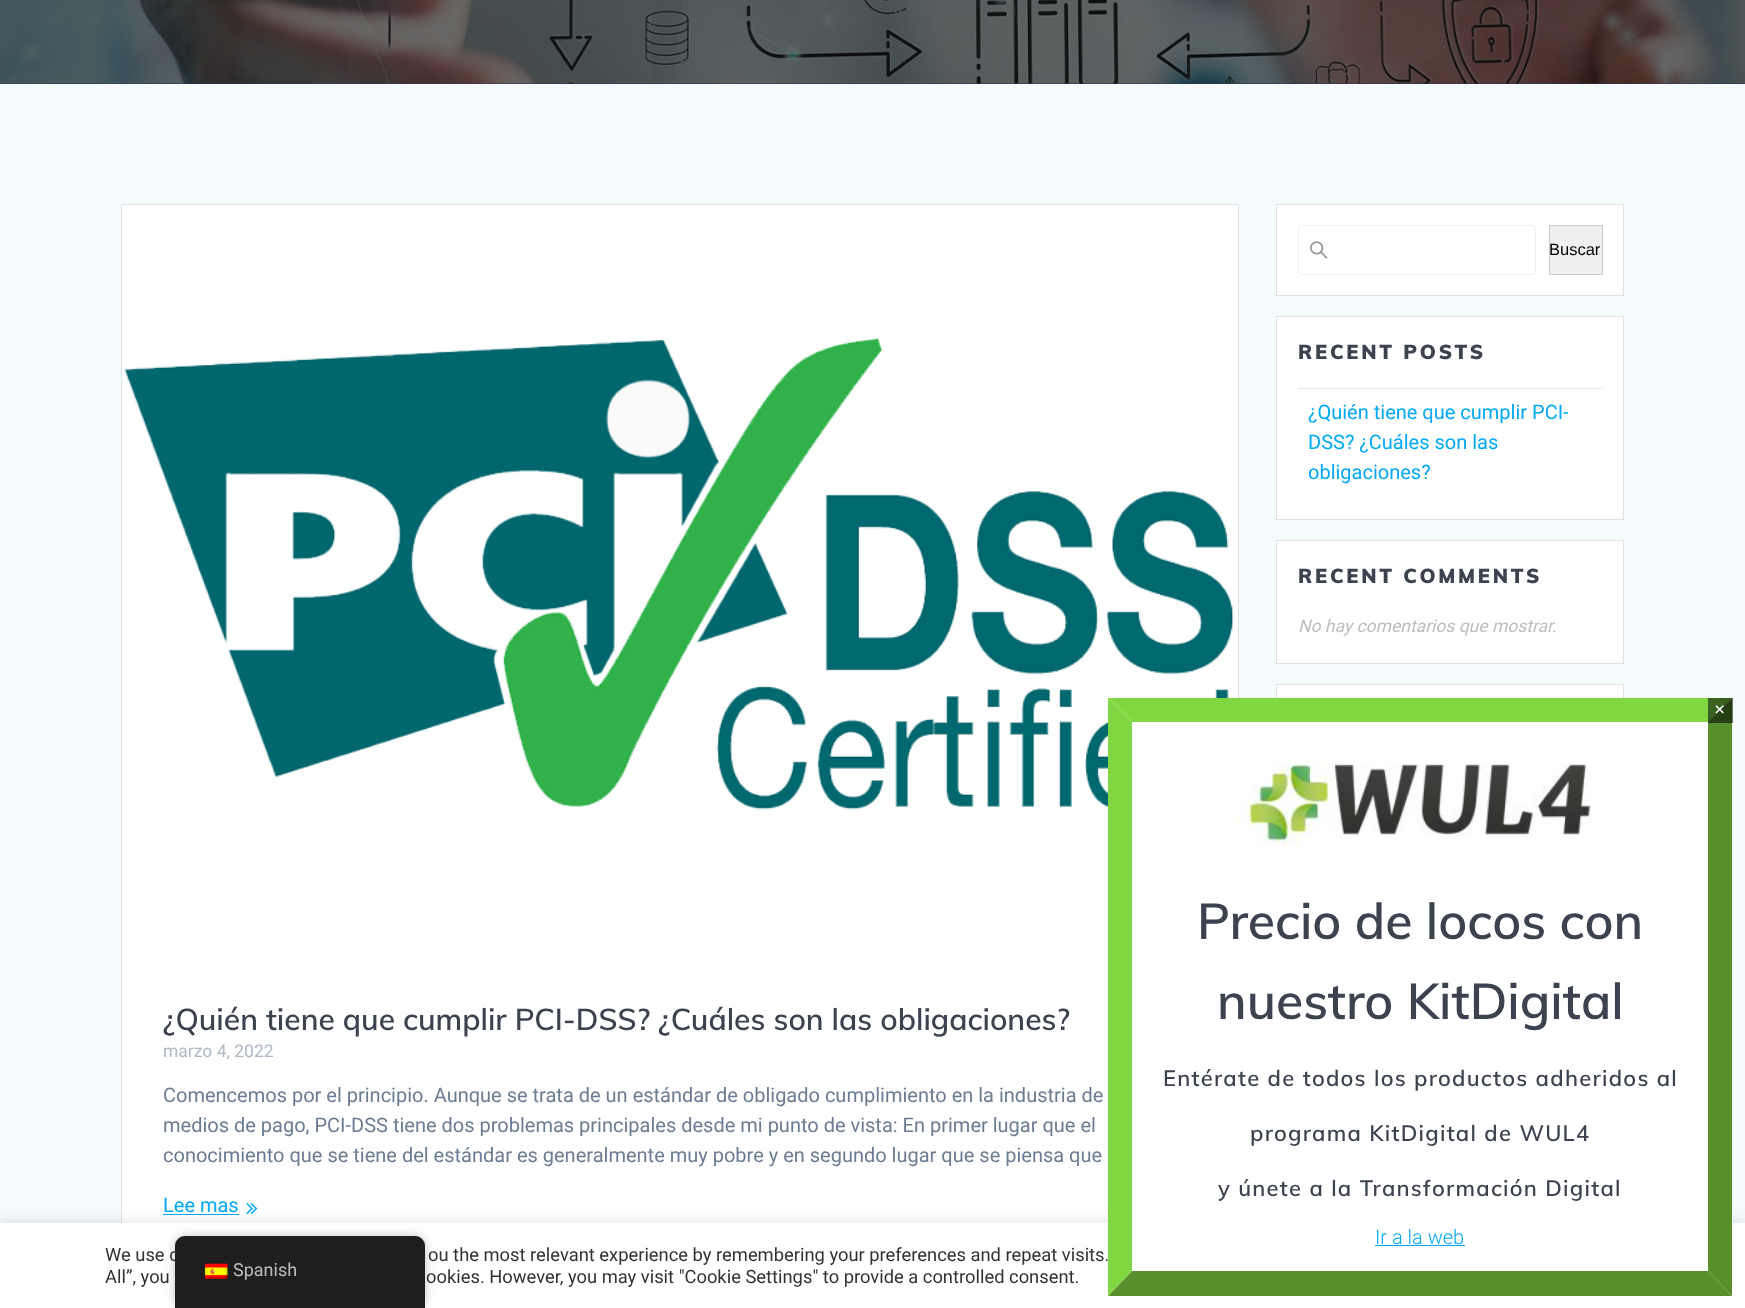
<svg xmlns="http://www.w3.org/2000/svg" width="1745" height="1308">
<rect width="100%" height="100%" fill="#2d305c"/>
<image x="0" y="0" width="1745" height="84" href="media/1.png"/>
<image x="651" y="0" width="32" height="82" href="media/2.png"/>
<rect y="84" width="1745" height="1139" fill="#f5fafd"/>
<rect x="1276.5" y="204.5" width="347" height="91" fill="#fff" stroke="#e0e1e1"/>
<image x="1310" y="241" width="18" height="18" href="media/3.png"/>
<rect x="1298.5" y="225.5" width="237" height="49" rx="3.5" fill="none" stroke="#f1f1f1"/>
<rect x="1549.5" y="225.5" width="53" height="49" fill="#efefef" stroke="#ccc"/>
<text x="1549" y="255" style="font-family:Liberation Sans;font-size:16.5px;fill:#000">Buscar</text>
<rect x="1276.5" y="316.5" width="347" height="203" fill="#fff" stroke="#e0e1e1"/>
<text x="1298" y="359" style="font-family:Muli;font-size:20px;font-weight:900;letter-spacing:2.75px;fill:#3c424f">RECENT POSTS</text>
<rect x="1298" y="388" width="305" height="1" fill="#e6e6e6"/>
<text x="1308" y="419" style="font-family:Roboto;font-size:20px;fill:#03a9f4">¿Quién tiene que cumplir PCI-</text>
<text x="1308" y="449" style="font-family:Roboto;font-size:20px;fill:#03a9f4">DSS? ¿Cuáles son las</text>
<text x="1308" y="479" style="font-family:Roboto;font-size:20px;fill:#03a9f4">obligaciones?</text>
<rect x="1276.5" y="540.5" width="347" height="123" fill="#fff" stroke="#e0e1e1"/>
<text x="1298" y="583" style="font-family:Muli;font-size:20px;font-weight:900;letter-spacing:2.75px;fill:#3c424f">RECENT COMMENTS</text>
<text x="1298" y="632" style="font-family:Roboto;font-size:17.5px;font-style:italic;fill:#bdbdbd">No hay comentarios que mostrar.</text>
<rect x="1277" y="685" width="346" height="13" fill="#fff"/>
<rect x="1276.5" y="684.5" width="347" height="143" fill="none" stroke="#e0e1e1"/>
<rect x="122" y="205" width="1116" height="1018" fill="#fff"/>
<rect x="121.5" y="204.5" width="1117" height="1058" fill="none" stroke="#e0e1e1"/>
<image x="124" y="338" width="1110" height="472" href="media/4.png"/>
<text x="163" y="1030" style="font-family:Muli;font-size:30px;font-weight:600;fill:#3c424f">¿Quién tiene que cumplir PCI-DSS? ¿Cuáles son las obligaciones?</text>
<text x="163" y="1057" style="font-family:Roboto;font-size:17.5px;fill:#aeb7c4">marzo 4, 2022</text>
<text x="163" y="1102" style="font-family:Roboto;font-size:20px;fill:#6b7c93">Comencemos por el principio. Aunque se trata de un estándar de obligado cumplimiento en la industria de</text>
<text x="163" y="1132" style="font-family:Roboto;font-size:20px;fill:#6b7c93">medios de pago, PCI-DSS tiene dos problemas principales desde mi punto de vista: En primer lugar que el</text>
<text x="163" y="1162" style="font-family:Roboto;font-size:20px;fill:#6b7c93">conocimiento que se tiene del estándar es generalmente muy pobre y en segundo lugar que se piensa que</text>
<text x="163" y="1212" style="font-family:Roboto;font-size:20px;fill:#03a9f4">Lee mas</text>
<rect x="163" y="1214" width="76" height="1" fill="#03a9f4"/>
<image x="246" y="1203" width="12" height="12" href="media/5.png"/>
<rect y="1221" width="1745" height="87" fill="#acabab4d" filter="blur(6px)"/>
<rect x="1108" y="698" width="625" height="525" fill="#fff"/>
<path d="M1108 698h624l-24 24h-576z" fill="#81d742"/>
<rect y="1223" width="1745" height="85" fill="#fff"/>
<path d="M1732 698v598l-24-25v-549z" fill="#568f2c"/>
<path d="M1732 1296h-624l24-25h576z" fill="#568f2c"/>
<path d="M1108 1296v-598l24 24v549z" fill="#81d742"/>
<rect x="1708" y="698" width="25" height="25" fill="#0000008c"/>
<text x="1714" y="716" style="font-family:Liberation Serif;font-size:20px;font-weight:bold;fill:#fff">×</text>
<image x="1237" y="763" width="356" height="83" href="media/6.png"/>
<text x="1197" y="939" style="font-family:Muli;font-size:50px;font-weight:600;fill:#3c424f">Precio de locos con</text>
<text x="1217" y="1019" style="font-family:Muli;font-size:50px;font-weight:600;fill:#3c424f">nuestro KitDigital</text>
<text x="1163" y="1086" style="font-family:Muli;font-size:22px;font-weight:600;letter-spacing:1.25px;fill:#3c424f">Entérate de todos los productos adheridos al</text>
<text x="1250" y="1141" style="font-family:Muli;font-size:22px;font-weight:600;letter-spacing:1.25px;fill:#3c424f">programa KitDigital de WUL4</text>
<text x="1218" y="1196" style="font-family:Muli;font-size:22px;font-weight:600;letter-spacing:1.25px;fill:#3c424f">y únete a la Transformación Digital</text>
<text x="1375" y="1244" style="font-family:Roboto;font-size:20px;font-weight:300;fill:#03a9f4">Ir a la web</text>
<rect x="1375" y="1245" width="90" height="1" fill="#03a9f4"/>
<text x="105" y="1261" style="font-family:Roboto;font-size:18.35px;fill:#333">We use c</text>
<text x="428" y="1261" style="font-family:Roboto;font-size:18.35px;fill:#333">ou the most relevant experience by remembering your preferences and repeat visits.</text>
<text x="105" y="1283" style="font-family:Roboto;font-size:18.35px;fill:#333">All”, you</text>
<text x="426" y="1283" style="font-family:Roboto;font-size:18.35px;fill:#333">ookies. However, you may visit "Cookie Settings" to provide a controlled consent.</text>
<rect x="175" y="1236" width="250" height="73" rx="10" fill="#00000040" filter="blur(5px)"/>
<path d="M185 1236h230c5.5 0 10 4.5 10 10v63h-250v-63c0-5.5 4.5-10 10-10z" fill="#1e1e1e"/>
<image x="204" y="1263" width="24" height="16" href="media/7.png"/>
<text x="233" y="1276" style="font-family:Roboto;font-size:18px;fill:#bdbdbd">Spanish</text>
</svg>
